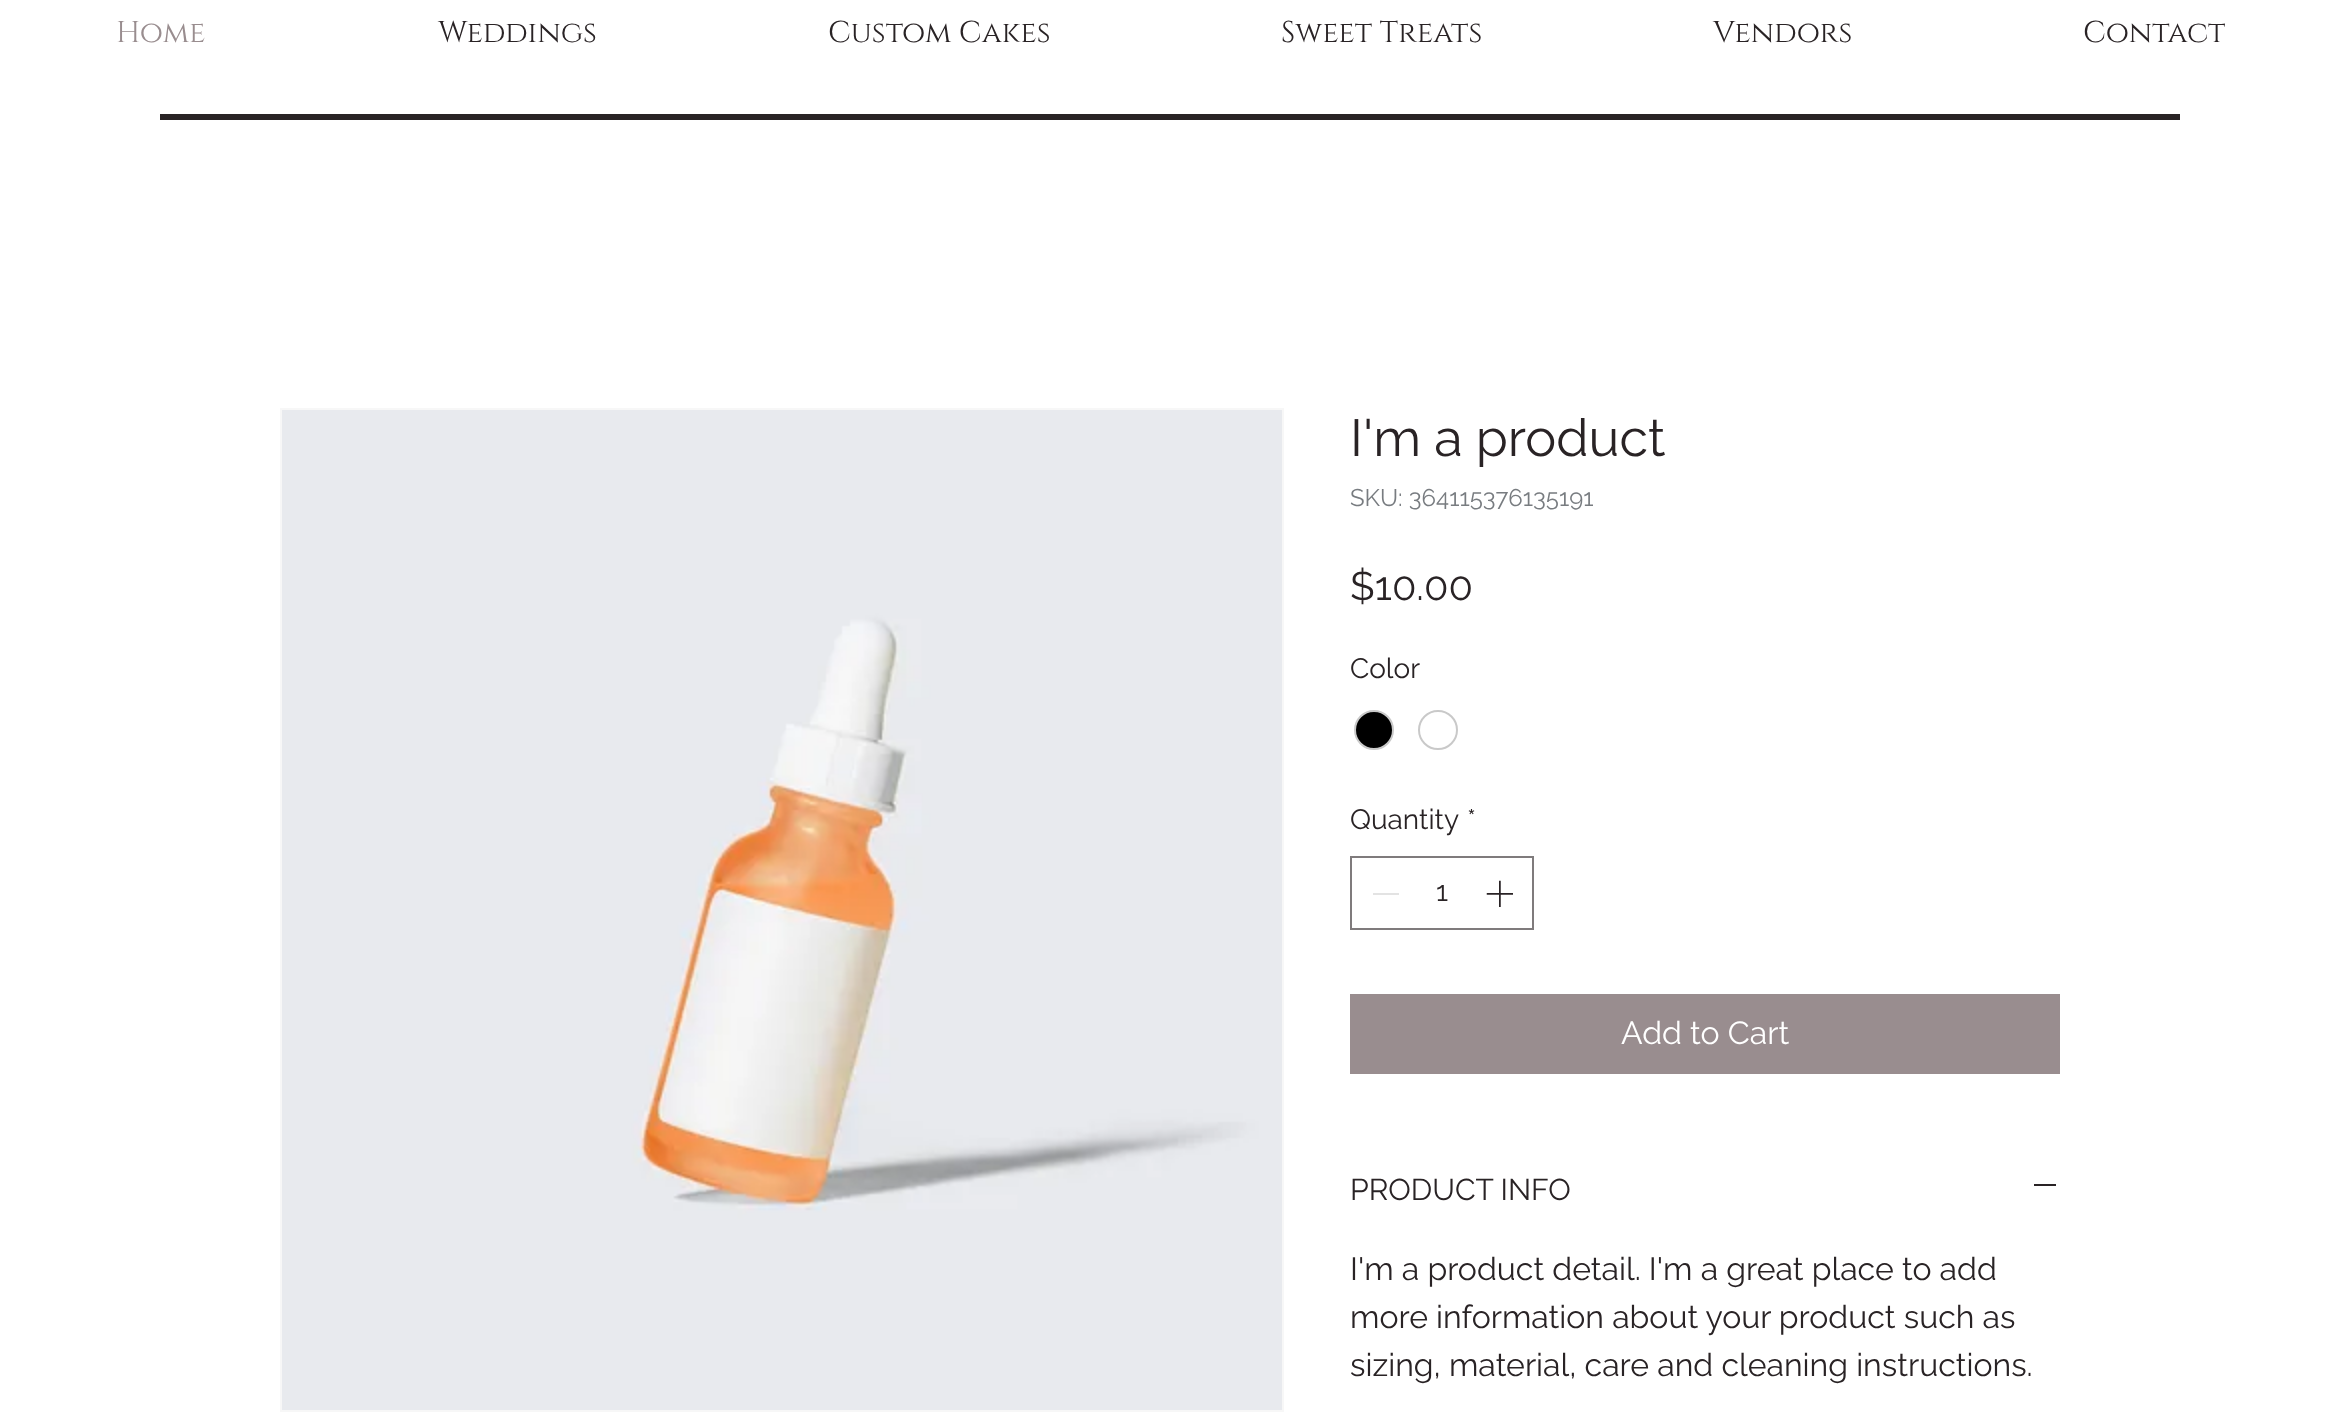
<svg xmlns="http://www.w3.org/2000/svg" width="2340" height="1415">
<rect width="100%" height="100%" fill="#fff"/>
<text x="116" y="42" style="font-family:Cinzel;font-size:30px;fill:#998d8f">Home</text>
<text x="438" y="42" style="font-family:Cinzel;font-size:30px;fill:#292325">Weddings</text>
<text x="828" y="42" style="font-family:Cinzel;font-size:30px;fill:#292325">Custom Cakes</text>
<text x="1281" y="42" style="font-family:Cinzel;font-size:30px;fill:#292325">Sweet Treats</text>
<text x="1713" y="42" style="font-family:Cinzel;font-size:30px;fill:#292325">Vendors</text>
<text x="2083" y="42" style="font-family:Cinzel;font-size:30px;fill:#292325">Contact</text>
<rect x="160" y="114" width="2020" height="6" fill="#292325"/>
<rect x="281" y="409" width="1002" height="1002" fill="none" stroke="#f7f7f7" stroke-width="2"/>
<image x="282" y="410" width="1000" height="1000" href="media/1.png"/>
<text x="1350" y="456" style="font-family:Raleway;font-size:52px;fill:#292325">I'm a product</text>
<text x="1350" y="506" style="font-family:Raleway;font-size:24px;fill:#787c80">SKU: 364115376135191</text>
<text x="1350" y="600" style="font-family:Raleway;font-size:40px;fill:#292325">$10.00</text>
<text x="1350" y="678" style="font-family:Raleway;font-size:28px;fill:#292325">Color</text>
<circle cx="1374" cy="730" r="19" fill="#000" stroke="#c9c9c9" stroke-width="2"/>
<circle cx="1438" cy="730" r="19" fill="none" stroke="#c9c9c9" stroke-width="2"/>
<text x="1350" y="829" style="font-family:Raleway;font-size:28px;fill:#292325">Quantity</text>
<text x="1467" y="829" style="font-family:Raleway;font-size:28px;fill:#292325">*</text>
<rect x="1351" y="857" width="182" height="72" fill="none" stroke="#7f7b7c" stroke-width="2"/>
<rect x="1373" y="893" width="26" height="2" fill="#e3e3e3"/>
<text x="1436" y="901" style="font-family:Raleway;font-size:28px;fill:#292325">1</text>
<image x="1486" y="880" width="27" height="27" href="media/2.png"/>
<rect x="1350" y="994" width="710" height="80" fill="#998d8f"/>
<text x="1621" y="1044" style="font-family:Raleway;font-size:32px;fill:#fff">Add to Cart</text>
<text x="1350" y="1200" style="font-family:Raleway;font-size:30px;fill:#292325">PRODUCT INFO</text>
<rect x="2034" y="1184" width="22" height="2" fill="#292325"/>
<text x="1350" y="1280" style="font-family:Raleway;font-size:32px;fill:#292325">I'm a product detail. I'm a great place to add</text>
<text x="1350" y="1328" style="font-family:Raleway;font-size:32px;fill:#292325">more information about your product such as</text>
<text x="1350" y="1376" style="font-family:Raleway;font-size:32px;fill:#292325">sizing, material, care and cleaning instructions.</text>
</svg>
